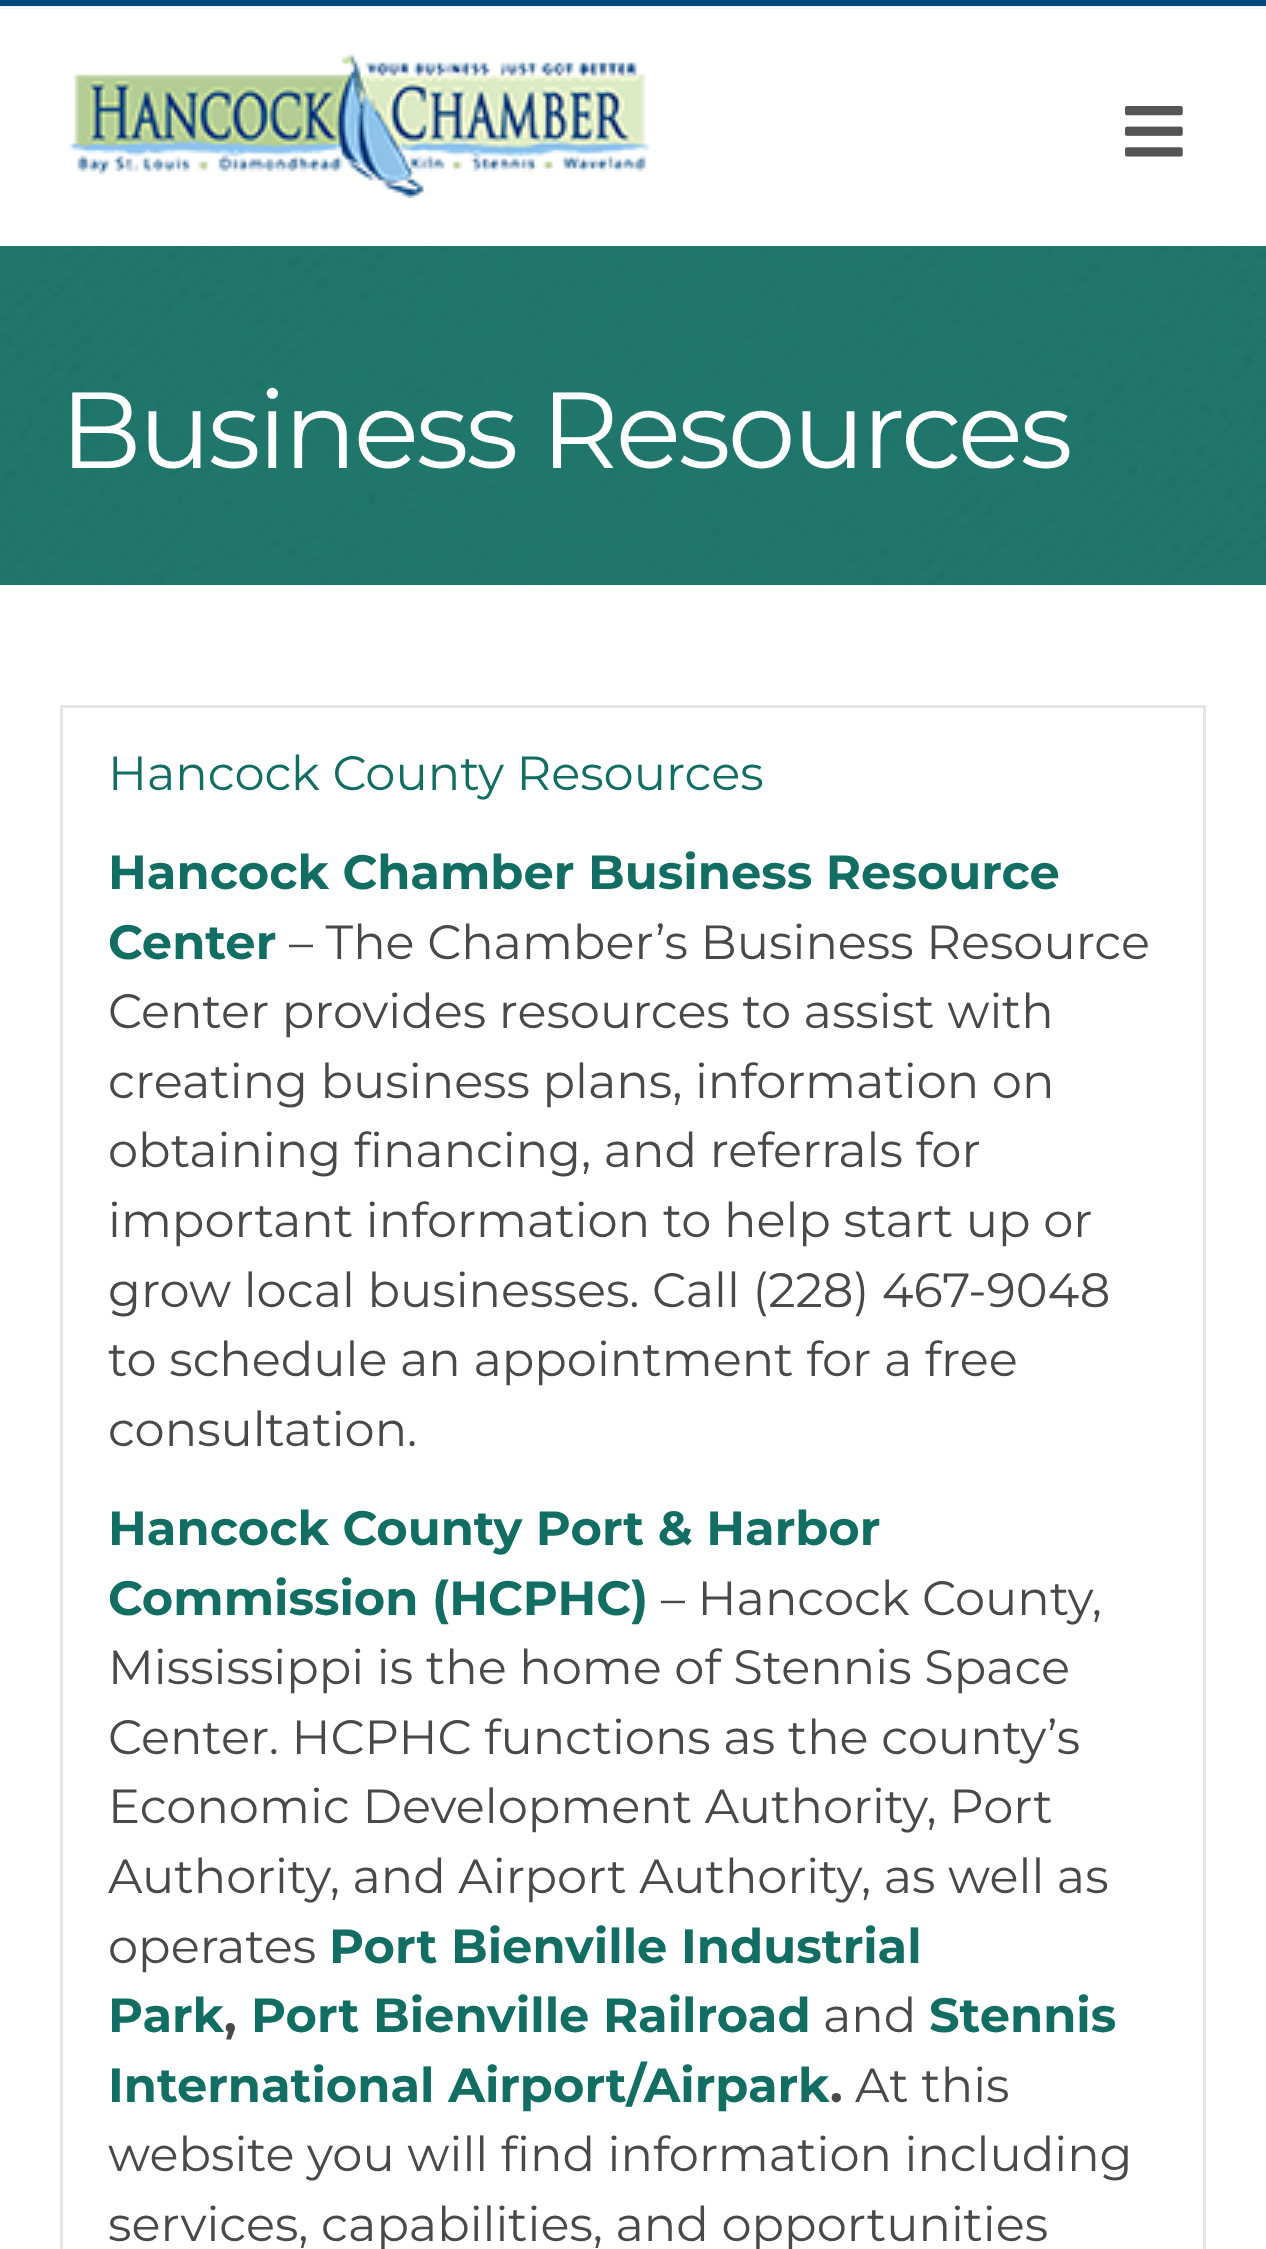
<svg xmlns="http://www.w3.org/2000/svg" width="1266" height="2249">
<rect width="100%" height="100%" fill="#fff"/>
<rect width="1266" height="6" fill="#00467f"/>
<rect y="6" width="1266" height="3" fill="#f5f5f5"/>
<image x="68" y="54" width="583" height="144" href="media/1.png"/>
<image x="1125" y="106" width="58" height="51" href="media/2.png"/>
<image x="0" y="246" width="1266" height="339" href="media/3.png"/>
<text x="60" y="468" style="font-family:Montserrat;font-size:108px;letter-spacing:-3px;fill:#fff">Business Resources</text>
<rect x="61.5" y="706.5" width="1143" height="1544" fill="none" stroke="#e5e5e5" stroke-width="3"/>
<text x="108" y="790" style="font-family:Montserrat;font-size:48px;fill:#126e62">Hancock County Resources</text>
<text x="108" y="889" style="font-family:Montserrat;font-size:48px;font-weight:bold;fill:#126e62">Hancock Chamber Business Resource</text>
<text x="108" y="959" style="font-family:Montserrat;font-size:48px;font-weight:bold;fill:#126e62">Center</text>
<text x="289" y="959" style="font-family:Montserrat;font-size:48px;fill:#494949">– The Chamber’s Business Resource</text>
<text x="108" y="1028" style="font-family:Montserrat;font-size:48px;fill:#494949">Center provides resources to assist with</text>
<text x="108" y="1098" style="font-family:Montserrat;font-size:48px;fill:#494949">creating business plans, information on</text>
<text x="108" y="1167" style="font-family:Montserrat;font-size:48px;fill:#494949">obtaining financing, and referrals for</text>
<text x="108" y="1237" style="font-family:Montserrat;font-size:48px;fill:#494949">important information to help start up or</text>
<text x="108" y="1307" style="font-family:Montserrat;font-size:48px;fill:#494949">grow local businesses. Call (228) 467-9048</text>
<text x="108" y="1376" style="font-family:Montserrat;font-size:48px;fill:#494949">to schedule an appointment for a free</text>
<text x="108" y="1446" style="font-family:Montserrat;font-size:48px;fill:#494949">consultation.</text>
<text x="108" y="1545" style="font-family:Montserrat;font-size:48px;font-weight:bold;fill:#126e62">Hancock County Port &amp; Harbor</text>
<text x="108" y="1615" style="font-family:Montserrat;font-size:48px;font-weight:bold;fill:#126e62">Commission (HCPHC)</text>
<text x="661" y="1615" style="font-family:Montserrat;font-size:48px;fill:#494949">– Hancock County,</text>
<text x="108" y="1684" style="font-family:Montserrat;font-size:48px;fill:#494949">Mississippi is the home of Stennis Space</text>
<text x="108" y="1754" style="font-family:Montserrat;font-size:48px;fill:#494949">Center. HCPHC functions as the county’s</text>
<text x="108" y="1823" style="font-family:Montserrat;font-size:48px;fill:#494949">Economic Development Authority, Port</text>
<text x="108" y="1893" style="font-family:Montserrat;font-size:48px;fill:#494949">Authority, and Airport Authority, as well as</text>
<text x="108" y="1963" style="font-family:Montserrat;font-size:48px;fill:#494949">operates</text>
<text x="329" y="1963" style="font-family:Montserrat;font-size:48px;font-weight:bold;fill:#126e62">Port Bienville Industrial</text>
<text x="108" y="2032" style="font-family:Montserrat;font-size:48px;font-weight:bold;fill:#126e62">Park</text>
<text x="224" y="2032" style="font-family:Montserrat;font-size:48px;font-weight:bold;fill:#494949">,</text>
<text x="251" y="2032" style="font-family:Montserrat;font-size:48px;font-weight:bold;fill:#126e62">Port Bienville Railroad</text>
<text x="823" y="2032" style="font-family:Montserrat;font-size:48px;fill:#494949">and</text>
<text x="929" y="2032" style="font-family:Montserrat;font-size:48px;font-weight:bold;fill:#126e62">Stennis</text>
<text x="108" y="2102" style="font-family:Montserrat;font-size:48px;font-weight:bold;fill:#126e62">International Airport/Airpark</text>
<text x="830" y="2102" style="font-family:Montserrat;font-size:48px;font-weight:bold;fill:#494949">.</text>
<text x="855" y="2102" style="font-family:Montserrat;font-size:48px;fill:#494949">At this</text>
<text x="108" y="2171" style="font-family:Montserrat;font-size:48px;fill:#494949">website you will find information including</text>
<text x="108" y="2241" style="font-family:Montserrat;font-size:48px;fill:#494949">services, capabilities, and opportunities</text>
</svg>
